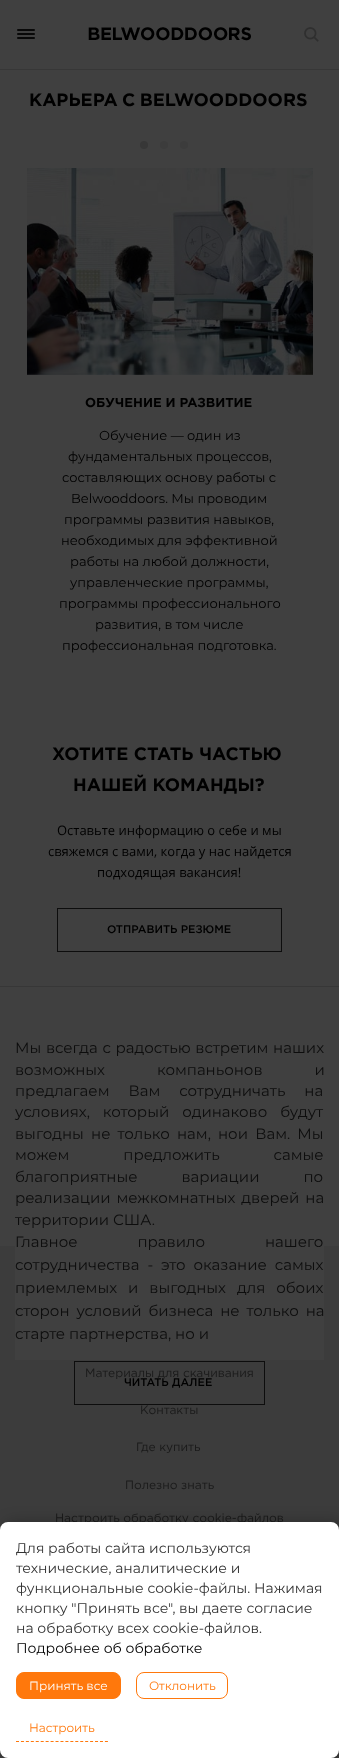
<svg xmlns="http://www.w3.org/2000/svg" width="339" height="1758">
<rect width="100%" height="100%" fill="#404040"/>
<rect y="69" width="339" height="1" fill="#373737"/>
<rect x="17" y="29" width="18" height="2" rx="1" fill="#090909"/>
<rect x="17" y="33" width="18" height="2" rx="1" fill="#090909"/>
<rect x="17" y="37" width="18" height="2" rx="1" fill="#090909"/>
<image x="88" y="27" width="163" height="14" href="media/1.png"/>
<image x="304" y="27" width="15" height="15" href="media/2.png"/>
<text x="29" y="106" word-spacing="-1" style="font-family:Gotham;font-size:18px;font-weight:bold;fill:#000">КАРЬЕРА С BELWOODDOORS</text>
<circle cx="144" cy="145" r="4" fill="#373737"/>
<circle cx="164" cy="145" r="4" fill="#3c3c3c"/>
<circle cx="184" cy="145" r="4" fill="#3c3c3c"/>
<image x="27" y="168" width="286" height="207" href="media/3.png"/>
<text x="85" y="407" style="font-family:Gotham;font-size:13px;font-weight:bold;fill:#000">ОБУЧЕНИЕ И РАЗВИТИЕ</text>
<text x="99" y="440" style="font-family:Montserrat;font-size:13px;fill:#000">Обучение — один из</text>
<text x="68" y="461" style="font-family:Montserrat;font-size:13px;fill:#000">фундаментальных процессов,</text>
<text x="62" y="482" style="font-family:Montserrat;font-size:13px;fill:#000">составляющих основу работы с</text>
<text x="71" y="503" style="font-family:Montserrat;font-size:13px;fill:#000">Belwooddoors. Мы проводим</text>
<text x="64" y="524" style="font-family:Montserrat;font-size:13px;fill:#000">программы развития навыков,</text>
<text x="61" y="545" style="font-family:Montserrat;font-size:13px;fill:#000">необходимых для эффективной</text>
<text x="70" y="566" style="font-family:Montserrat;font-size:13px;fill:#000">работы на любой должности,</text>
<text x="70" y="587" style="font-family:Montserrat;font-size:13px;fill:#000">управленческие программы,</text>
<text x="59" y="608" style="font-family:Montserrat;font-size:13px;fill:#000">программы профессионального</text>
<text x="95" y="629" style="font-family:Montserrat;font-size:13px;fill:#000">развития, в том числе</text>
<text x="62" y="650" style="font-family:Montserrat;font-size:13px;fill:#000">профессиональная подготовка.</text>
<text x="52" y="760" style="font-family:Gotham;font-size:18px;font-weight:bold;fill:#000">ХОТИТЕ СТАТЬ ЧАСТЬЮ</text>
<text x="73" y="791" style="font-family:Gotham;font-size:18px;font-weight:bold;fill:#000">НАШЕЙ КОМАНДЫ?</text>
<text x="57" y="835" style="font-family:Open Sans;font-size:13px;fill:#000">Оставьте информацию о себе и мы</text>
<text x="48" y="856" style="font-family:Open Sans;font-size:13px;fill:#000">свяжемся с вами, когда у нас найдется</text>
<text x="97" y="877" style="font-family:Open Sans;font-size:13px;fill:#000">подходящая вакансия!</text>
<rect x="57.5" y="908.5" width="224" height="43" fill="none" stroke="#0d0d0d"/>
<text x="107" y="933" style="font-family:Gotham;font-size:11px;font-weight:500;fill:#000">ОТПРАВИТЬ РЕЗЮМЕ</text>
<rect y="986" width="339" height="1" fill="#373737"/>
<rect y="1246" width="339" height="512" fill="#3c3c3c"/>
<rect x="15" y="1246" width="309" height="114" fill="#404040"/>
<text x="15" y="1053" word-spacing="0.75" style="font-family:Montserrat;font-size:15px;fill:#0d0d0d">Мы всегда с радостью встретим наших</text>
<text x="15" y="1075" word-spacing="48" style="font-family:Montserrat;font-size:15px;fill:#0d0d0d">возможных компаньонов и</text>
<text x="15" y="1096" word-spacing="15" style="font-family:Montserrat;font-size:15px;fill:#0d0d0d">предлагаем Вам сотрудничать на</text>
<text x="15" y="1117" word-spacing="9" style="font-family:Montserrat;font-size:15px;fill:#0d0d0d">условиях, который одинаково будут</text>
<text x="15" y="1139" word-spacing="3.25" style="font-family:Montserrat;font-size:15px;fill:#0d0d0d">выгодны не только нам, нои Вам. Мы</text>
<text x="15" y="1160" word-spacing="50" style="font-family:Montserrat;font-size:15px;fill:#0d0d0d">можем предложить самые</text>
<text x="15" y="1182" word-spacing="40" style="font-family:Montserrat;font-size:15px;fill:#0d0d0d">благоприятные вариации по</text>
<text x="15" y="1203" word-spacing="2" style="font-family:Montserrat;font-size:15px;fill:#0d0d0d">реализации межкомнатных дверей на</text>
<text x="15" y="1225" style="font-family:Montserrat;font-size:15px;fill:#0d0d0d">территории США.</text>
<text x="15" y="1247" word-spacing="56" style="font-family:Montserrat;font-size:15px;fill:#0d0d0d">Главное правило нашего</text>
<text x="15" y="1270" word-spacing="4" style="font-family:Montserrat;font-size:15px;fill:#0d0d0d">сотрудничества - это оказание самых</text>
<text x="15" y="1293" word-spacing="7" style="font-family:Montserrat;font-size:15px;fill:#0d0d0d">приемлемых и выгодных для обоих</text>
<text x="15" y="1316" word-spacing="3" style="font-family:Montserrat;font-size:15px;fill:#0d0d0d">сторон условий бизнеса не только на</text>
<text x="15" y="1339" style="font-family:Montserrat;font-size:15px;fill:#0d0d0d">старте партнерства, но и</text>
<rect x="74.5" y="1361.5" width="190" height="43" fill="none" stroke="#0d0d0d"/>
<text x="124" y="1386" style="font-family:Gotham;font-size:11px;font-weight:500;fill:#000">ЧИТАТЬ ДАЛЕЕ</text>
<text x="85" y="1377" style="font-family:Gotham;font-size:12px;fill:#1a1a1a">Материалы для скачивания</text>
<text x="140" y="1414" style="font-family:Gotham;font-size:12px;fill:#1a1a1a">Контакты</text>
<text x="136" y="1451" style="font-family:Gotham;font-size:12px;fill:#1a1a1a">Где купить</text>
<text x="125" y="1489" style="font-family:Gotham;font-size:12px;fill:#1a1a1a">Полезно знать</text>
<text x="55" y="1522" style="font-family:Gotham;font-size:12px;fill:#1a1a1a">Настроить обработку cookie-файлов</text>
<rect x="5" y="1522" width="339" height="236" rx="8" fill="#00000040" filter="blur(7.5px)"/>
<rect y="1522" width="339" height="236" rx="8" fill="#fff"/>
<text x="16" y="1553" style="font-family:Montserrat;font-size:14px;fill:#333">Для работы сайта используются</text>
<text x="16" y="1573" style="font-family:Montserrat;font-size:14px;fill:#333">технические, аналитические и</text>
<text x="16" y="1593" style="font-family:Montserrat;font-size:14px;fill:#333">функциональные cookie-файлы. Нажимая</text>
<text x="16" y="1613" style="font-family:Montserrat;font-size:14px;fill:#333">кнопку "Принять все", вы даете согласие</text>
<text x="16" y="1633" style="font-family:Montserrat;font-size:14px;fill:#333">на обработку всех cookie-файлов.</text>
<text x="16" y="1653" style="font-family:Montserrat;font-size:14px;fill:#000">Подробнее об обработке</text>
<rect x="16.5" y="1672.5" width="104" height="26" rx="7.5" fill="#ff780c" stroke="#ff780c"/>
<text x="29" y="1690" style="font-family:Montserrat;font-size:12px;fill:#fff">Принять все</text>
<rect x="136.5" y="1672.5" width="91" height="26" rx="7.5" fill="none" stroke="#ff780c"/>
<text x="149" y="1690" style="font-family:Montserrat;font-size:12px;fill:#ff780c">Отклонить</text>
<path d="M16 1741.5h92" fill="none" stroke="#ff780c" stroke-dasharray="3 1.94"/>
<text x="29" y="1732" style="font-family:Montserrat;font-size:12px;fill:#ff780c">Настроить</text>
</svg>
